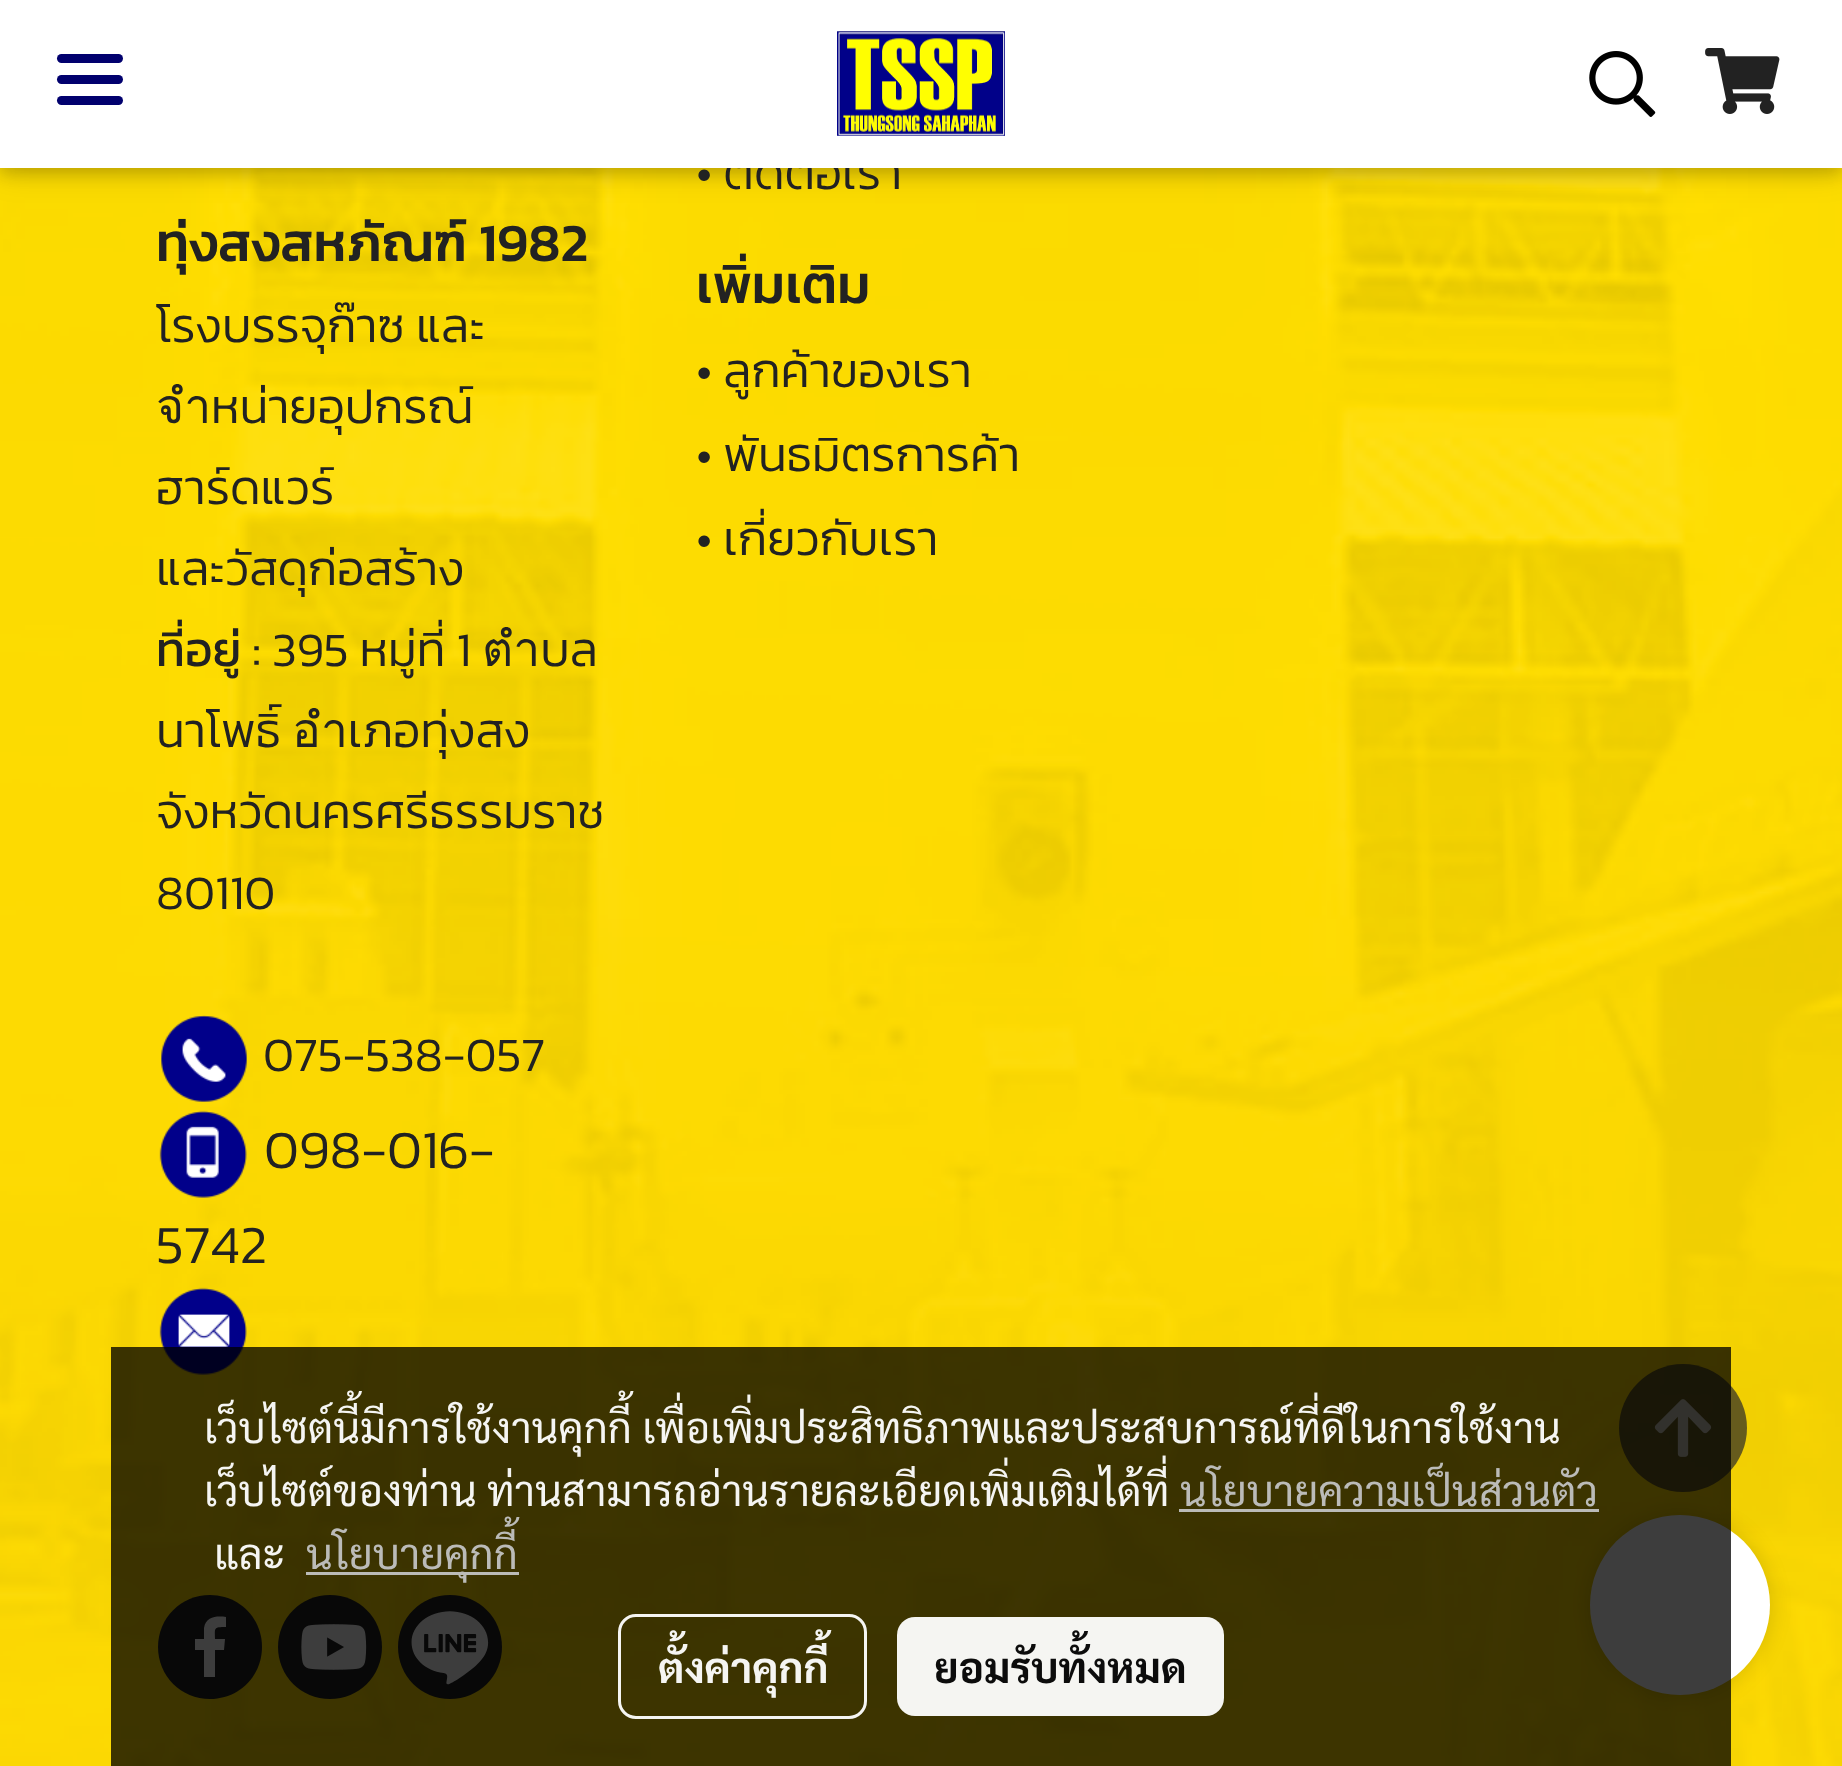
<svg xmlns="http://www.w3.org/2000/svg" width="1842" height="1766">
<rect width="100%" height="100%" fill="#fff"/>
<image x="0" y="168" width="1842" height="1598" href="media/4.png"/>
<rect y="6" width="1842" height="168" fill="#0000001f" filter="blur(15px)"/>
<rect y="6" width="1842" height="168" fill="#00000029" filter="blur(7.5px)"/>
<text x="696" y="189" style="font-family:Kanit;font-size:48px;font-weight:300;fill:#222">• ติดต่อเรา</text>
<rect width="1842" height="168" fill="#fff"/>
<rect x="57" y="75" width="66" height="9" rx="4.5" fill="#01006e"/>
<rect x="57" y="54" width="66" height="9" rx="4.5" fill="#01006e"/>
<rect x="57" y="96" width="66" height="9" rx="4.5" fill="#01006e"/>
<image x="837" y="31" width="168" height="105" href="media/1.png"/>
<image x="1589" y="51" width="67" height="66" href="media/2.png"/>
<image x="1705" y="48" width="75" height="66" href="media/3.png"/>
<text x="156" y="261" style="font-family:Kanit;font-size:54px;font-weight:500;fill:#222">ทุ่งสงสหภัณฑ์ 1982</text>
<text x="156" y="342" style="font-family:Kanit;font-size:48px;font-weight:300;fill:#222">โรงบรรจุก๊าซ และ</text>
<text x="156" y="423" style="font-family:Kanit;font-size:48px;font-weight:300;fill:#222">จำหน่ายอุปกรณ์</text>
<text x="156" y="504" style="font-family:Kanit;font-size:48px;font-weight:300;fill:#222">ฮาร์ดแวร์</text>
<text x="156" y="585" style="font-family:Kanit;font-size:48px;font-weight:300;fill:#222">และวัสดุก่อสร้าง</text>
<text x="156" y="666" style="font-family:Kanit;font-size:48px;fill:#222">ที่อยู่ :</text>
<text x="272" y="666" style="font-family:Kanit;font-size:48px;font-weight:300;fill:#222">395 หมู่ที่ 1 ตำบล</text>
<text x="156" y="747" style="font-family:Kanit;font-size:48px;font-weight:300;fill:#222">นาโพธิ์ อำเภอทุ่งสง</text>
<text x="156" y="828" style="font-family:Kanit;font-size:48px;font-weight:300;fill:#222">จังหวัดนครศรีธรรมราช</text>
<text x="156" y="909" style="font-family:Kanit;font-size:48px;font-weight:300;fill:#222">80110</text>
<image x="161" y="1015" width="86" height="87" href="media/5.png"/>
<text x="263" y="1071" style="font-family:Kanit;font-size:48px;font-weight:300;fill:#222">075-538-057</text>
<image x="159" y="1110" width="88" height="88" href="media/6.png"/>
<text x="264" y="1168" style="font-family:Kanit;font-size:54px;font-weight:300;fill:#222">098-016-</text>
<text x="156" y="1263" style="font-family:Kanit;font-size:54px;font-weight:300;fill:#222">5742</text>
<image x="159" y="1287" width="88" height="88" href="media/7.png"/>
<path d="M210 1595c-29 0-52 23-52 52c0 29 23 52 52 52c29 0 52-23 52-52c0-29-23-52-52-52z" fill="#242424"/>
<path d="M204 1677v-27h-9v-11h9v-11c2-12 13-12 22-11v10c-13 0-11 1-11 12h10l-1 11h-9v27" fill="#fff"/>
<path d="M330 1595c-29 0-52 23-52 52c0 29 23 52 52 52c29 0 52-23 52-52c0-29-23-52-52-52z" fill="#242424"/>
<image x="301" y="1624" width="66" height="46" href="media/8.png"/>
<path d="M450 1595c-29 0-52 23-52 52c0 29 23 52 52 52c29 0 52-23 52-52c0-29-23-52-52-52z" fill="#242424"/>
<image x="397" y="1594" width="106" height="106" href="media/9.png"/>
<text x="696" y="303" style="font-family:Kanit;font-size:54px;font-weight:500;fill:#222">เพิ่มเติม</text>
<text x="696" y="387" style="font-family:Kanit;font-size:48px;font-weight:300;fill:#222">• ลูกค้าของเรา</text>
<text x="696" y="471" style="font-family:Kanit;font-size:48px;font-weight:300;fill:#222">• พันธมิตรการค้า</text>
<text x="696" y="555" style="font-family:Kanit;font-size:48px;font-weight:300;fill:#222">• เกี่ยวกับเรา</text>
<rect x="1590" y="1515" width="180" height="180" rx="90" fill="#00000024" filter="blur(10.5px)"/>
<path d="M1683 1364c-35 0-64 29-64 64c0 35 29 64 64 64c35 0 64-29 64-64c0-35-29-64-64-64z" fill="#2b2a2ab3"/>
<image x="1654" y="1399" width="58" height="58" href="media/10.png"/>
<circle cx="1680" cy="1605" r="90" fill="#fff"/>
<rect x="111" y="1347" width="1620" height="419" fill="#000000c2"/>
<text x="204" y="1443" style="font-family:Sarabun;font-size:42px;fill:#f5f5f2">เว็บไซต์นี้มีการใช้งานคุกกี้ เพื่อเพิ่มประสิทธิภาพและประสบการณ์ที่ดีในการใช้งาน</text>
<text x="204" y="1506" style="font-family:Sarabun;font-size:42px;fill:#f5f5f2">เว็บไซต์ของท่าน ท่านสามารถอ่านรายละเอียดเพิ่มเติมได้ที่</text>
<text x="1180" y="1506" style="font-family:Sarabun;font-size:42px;fill:#bbbbb8">นโยบายความเป็นส่วนตัว</text>
<rect x="1179" y="1509" width="420" height="3" fill="#bbbbb8"/>
<text x="214" y="1569" style="font-family:Sarabun;font-size:42px;fill:#f5f5f2">และ</text>
<rect x="306" y="1572" width="213" height="3" fill="#bbbbb8"/>
<text x="306" y="1569" style="font-family:Sarabun;font-size:42px;fill:#bbbbb8">นโยบายคุกกี้</text>
<rect x="619.5" y="1615.5" width="246" height="102" rx="16.5" fill="none" stroke="#f5f5f2" stroke-width="3"/>
<text x="658" y="1683" style="font-family:Sarabun;font-size:42px;font-weight:bold;fill:#f5f5f2">ตั้งค่าคุกกี้</text>
<rect x="897" y="1617" width="327" height="99" rx="18" fill="#f5f5f2"/>
<text x="934" y="1683" style="font-family:Sarabun;font-size:42px;font-weight:bold;fill:#0c0c0c">ยอมรับทั้งหมด</text>
</svg>
